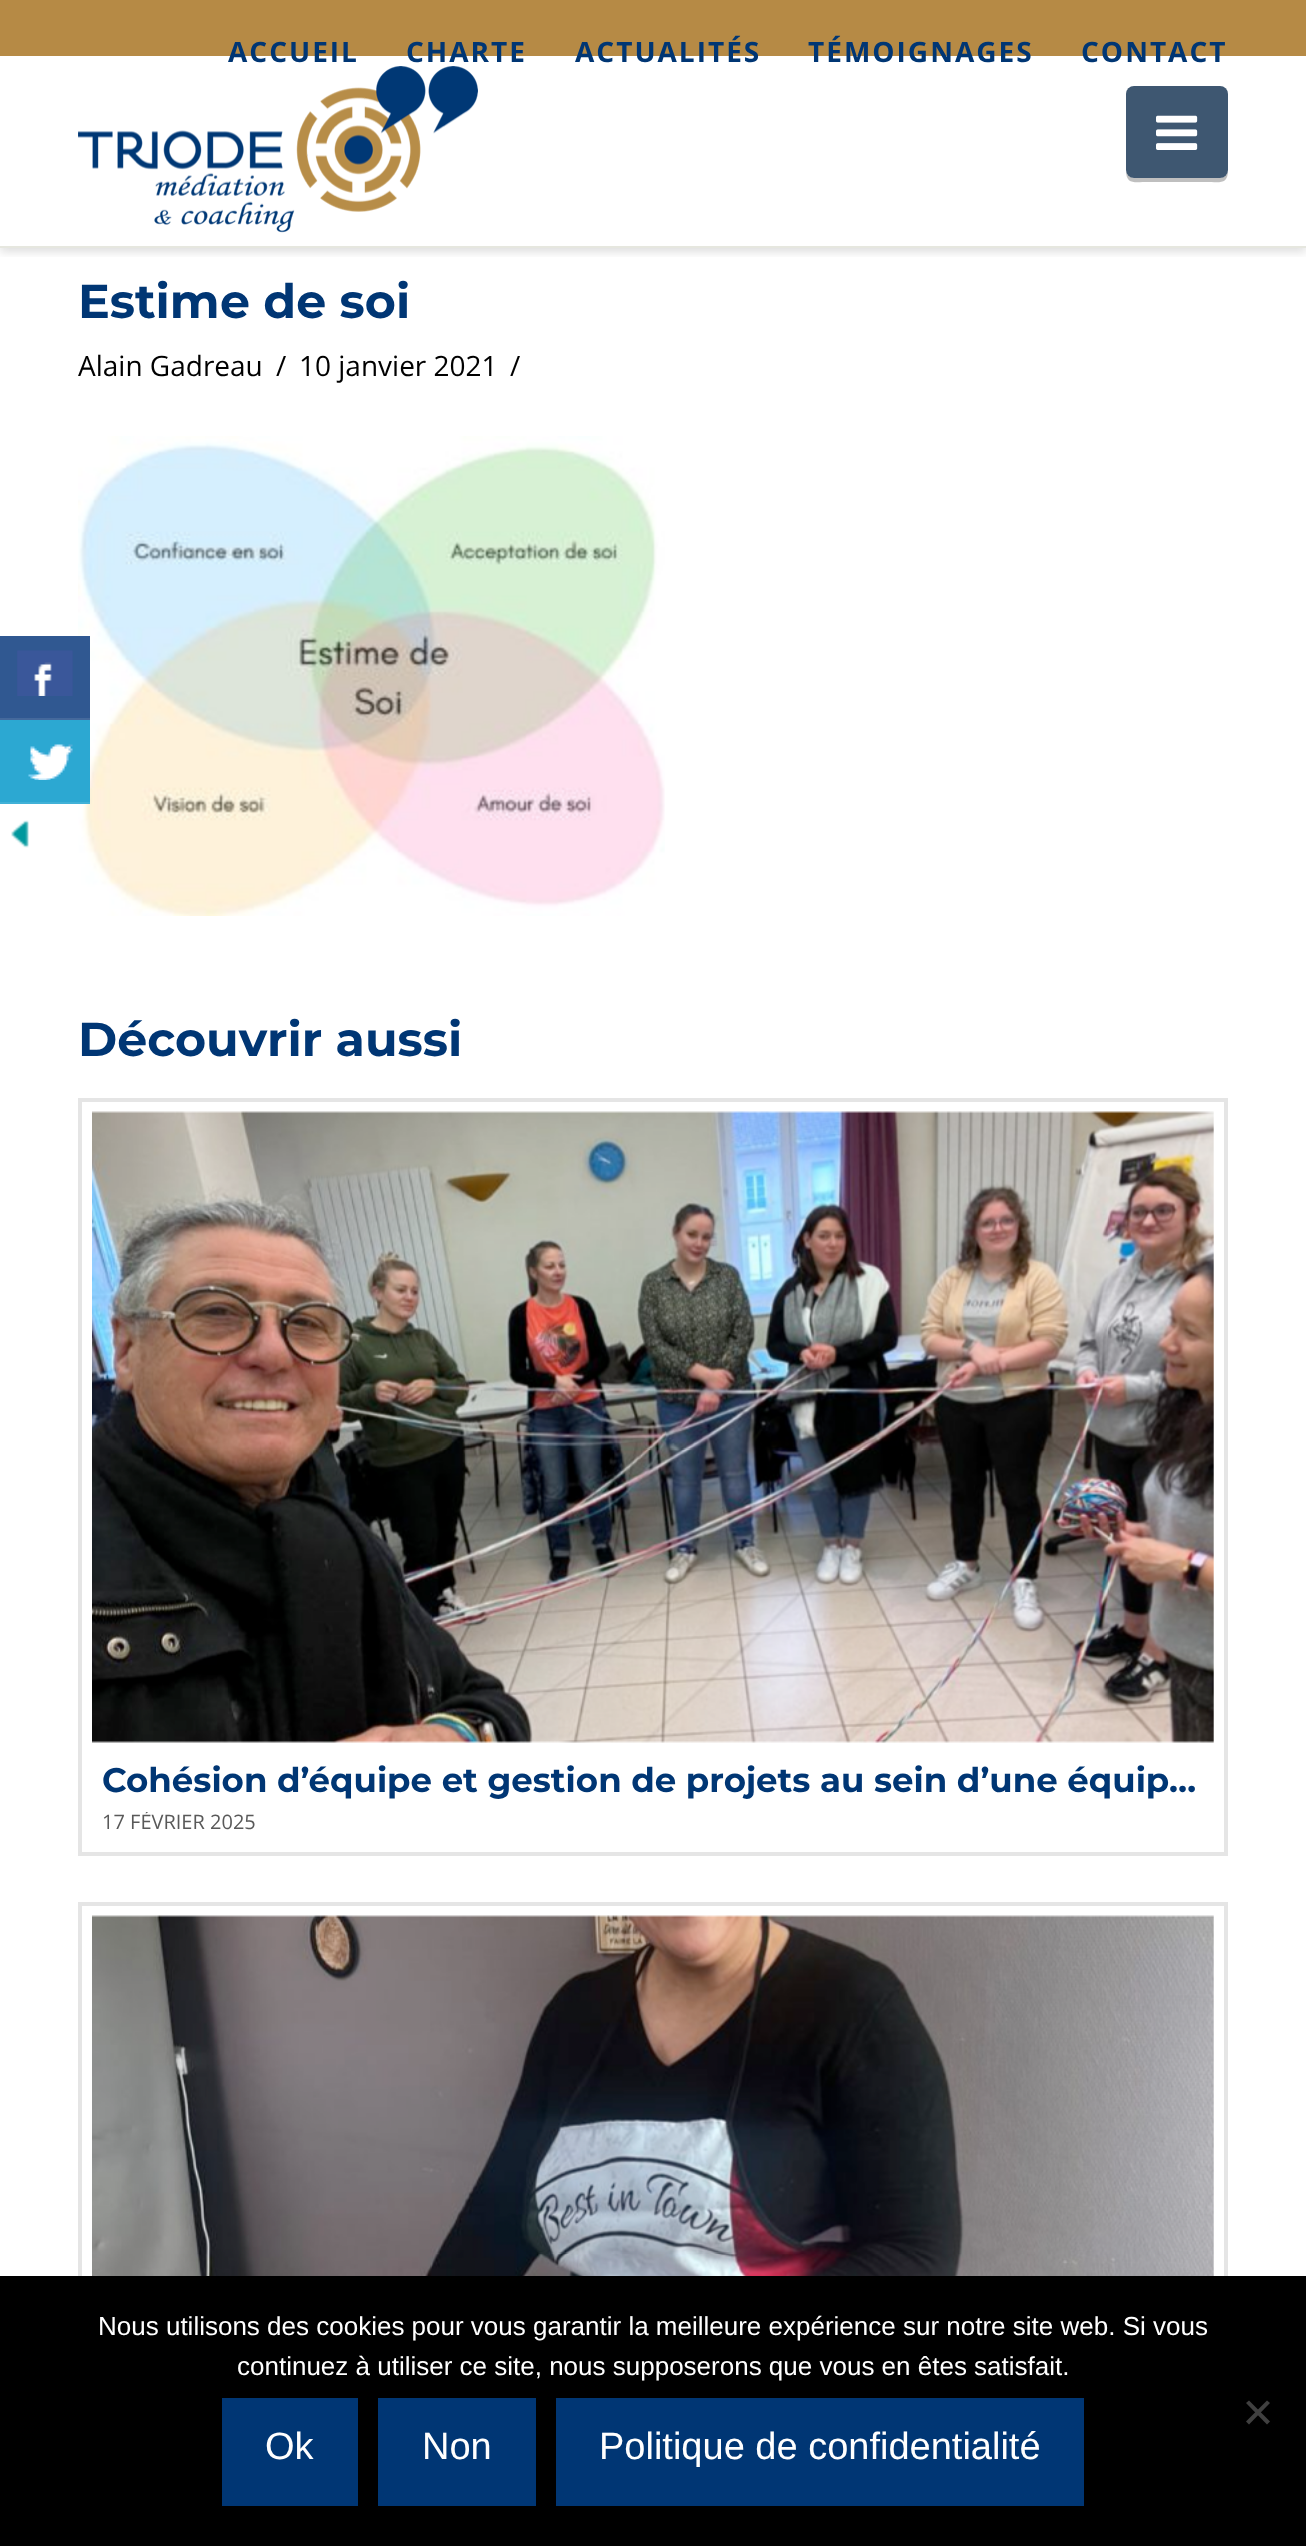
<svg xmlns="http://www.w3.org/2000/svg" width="1306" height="2546">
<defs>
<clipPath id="clip1"><rect x="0" y="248" width="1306" height="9"/></clipPath>
<clipPath id="clip2"><rect x="102" y="1812" width="1102" height="20"/></clipPath>
</defs>
<rect width="100%" height="100%" fill="#fff"/>
<image x="78" y="436" width="587" height="480" href="media/6.png"/>
<rect y="636" width="90" height="82" fill="#305891"/>
<rect y="718" width="90" height="2" fill="#45699c"/>
<image x="17" y="650" width="56" height="46" href="media/1.png"/>
<rect y="720" width="90" height="82" fill="#2ca8d2"/>
<rect y="802" width="90" height="2" fill="#41b1d7"/>
<image x="28" y="744" width="45" height="36" href="media/2.png"/>
<image x="11" y="820" width="18" height="28" href="media/3.png"/>
<g clip-path="url(#clip1)">
<rect y="50" width="1306" height="202" fill="#00000021" filter="blur(5px)"/>
</g>
<rect y="246" width="1306" height="2" fill="#e6e7df"/>
<image x="78" y="66" width="400" height="167" href="media/4.png"/>
<path d="M1126 170c0 15 8 12 22 12h58c14 0 22 3 22-12c0 4-4 8-8 8h-86c-4 0-8-4-8-8z" fill="#bfbfbf"/>
<rect x="1126" y="86" width="102" height="92" rx="8" fill="#3e5771"/>
<image x="1156" y="115" width="42" height="35" href="media/5.png"/>
<rect width="1306" height="56" fill="#b68a45"/>
<text x="228" y="62" style="font-family:Open Sans;font-size:28px;font-weight:bold;letter-spacing:2px;fill:#003674">ACCUEIL</text>
<text x="406" y="62" style="font-family:Open Sans;font-size:28px;font-weight:bold;letter-spacing:2px;fill:#003674">CHARTE</text>
<text x="575" y="62" style="font-family:Open Sans;font-size:28px;font-weight:bold;letter-spacing:2px;fill:#003674">ACTUALITÉS</text>
<text x="808" y="62" style="font-family:Open Sans;font-size:28px;font-weight:bold;letter-spacing:2px;fill:#003674">TÉMOIGNAGES</text>
<text x="1081" y="62" style="font-family:Open Sans;font-size:28px;font-weight:bold;letter-spacing:2px;fill:#003674">CONTACT</text>
<text x="78" y="318" style="font-family:Montserrat;font-size:47.5px;font-weight:bold;fill:#003674">Estime de soi</text>
<text x="78" y="376" style="font-family:Open Sans;font-size:28px;fill:#000">Alain Gadreau</text>
<text x="276" y="376" style="font-family:Open Sans;font-size:28px;fill:#000">/</text>
<text x="299" y="376" style="font-family:Open Sans;font-size:28px;fill:#000">10 janvier 2021</text>
<text x="510" y="376" style="font-family:Open Sans;font-size:28px;fill:#000">/</text>
<text x="78" y="1056" style="font-family:Montserrat;font-size:47.5px;font-weight:bold;fill:#003674">Découvrir aussi</text>
<rect x="80" y="1100" width="1146" height="754" fill="none" stroke="#e5e5e5" stroke-width="4"/>
<image x="92" y="1111" width="1122" height="632" href="media/7.png"/>
<text x="102" y="1792" style="font-family:Montserrat;font-size:34px;font-weight:bold;fill:#003674">Cohésion d’équipe et gestion de projets au sein d’une équip…</text>
<g clip-path="url(#clip2)">
<text x="102" y="1829" style="font-family:Open Sans;font-size:20px;fill:#595959">17 FÉVRIER 2025</text>
</g>
<rect x="80" y="1904" width="1146" height="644" fill="none" stroke="#e5e5e5" stroke-width="4"/>
<image x="92" y="1915" width="1122" height="361" href="media/8.png"/>
<rect y="2276" width="1306" height="270" fill="#000"/>
<text x="98" y="2335" style="font-family:Liberation Sans;font-size:26px;fill:#fff">Nous utilisons des cookies pour vous garantir la meilleure expérience sur notre site web. Si vous</text>
<text x="237" y="2375" style="font-family:Liberation Sans;font-size:26px;fill:#fff">continuez à utiliser ce site, nous supposerons que vous en êtes satisfait.</text>
<path d="M1267 2400.5l3 2.5l-21 21.5l-3-3z" fill="#404040"/>
<path d="M1246 2403l3-2.5l21 21l-3 3z" fill="#404040"/>
<rect x="222" y="2398" width="136" height="108" fill="#003674"/>
<text x="265" y="2459" style="font-family:Liberation Sans;font-size:38px;fill:#fff">Ok</text>
<rect x="378" y="2398" width="158" height="108" fill="#003674"/>
<text x="422" y="2459" style="font-family:Liberation Sans;font-size:38px;fill:#fff">Non</text>
<rect x="556" y="2398" width="528" height="108" fill="#003674"/>
<text x="599" y="2459" style="font-family:Liberation Sans;font-size:38px;fill:#fff">Politique de confidentialité</text>
</svg>
